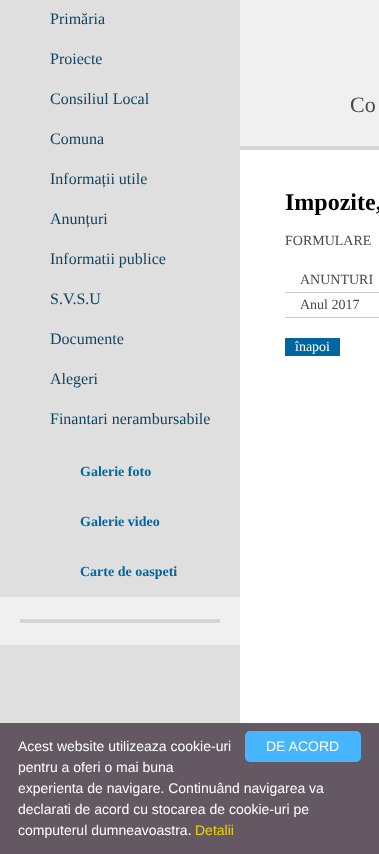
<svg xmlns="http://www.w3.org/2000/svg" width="379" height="854">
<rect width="100%" height="100%" fill="#fff"/>
<rect width="240" height="723" fill="#dfdfdf"/>
<text x="50" y="24" style="font-family:Liberation Serif;font-size:16px;fill:#0e4462">Primăria</text>
<text x="50" y="64" style="font-family:Liberation Serif;font-size:16px;fill:#0e4462">Proiecte</text>
<text x="50" y="104" style="font-family:Liberation Serif;font-size:16px;fill:#0e4462">Consiliul Local</text>
<text x="50" y="144" style="font-family:Liberation Serif;font-size:16px;fill:#0e4462">Comuna</text>
<text x="50" y="184" style="font-family:Liberation Serif;font-size:16px;fill:#0e4462">Informații utile</text>
<text x="50" y="224" style="font-family:Liberation Serif;font-size:16px;fill:#0e4462">Anunțuri</text>
<text x="50" y="264" style="font-family:Liberation Serif;font-size:16px;fill:#0e4462">Informatii publice</text>
<text x="50" y="304" style="font-family:Liberation Serif;font-size:16px;fill:#0e4462">S.V.S.U</text>
<text x="50" y="344" style="font-family:Liberation Serif;font-size:16px;fill:#0e4462">Documente</text>
<text x="50" y="384" style="font-family:Liberation Serif;font-size:16px;fill:#0e4462">Alegeri</text>
<text x="50" y="424" style="font-family:Liberation Serif;font-size:16px;fill:#0e4462">Finantari nerambursabile</text>
<text x="80" y="476" style="font-family:Liberation Serif;font-size:14px;font-weight:bold;fill:#0065a1">Galerie foto</text>
<text x="80" y="526" style="font-family:Liberation Serif;font-size:14px;font-weight:bold;fill:#0065a1">Galerie video</text>
<text x="80" y="576" style="font-family:Liberation Serif;font-size:14px;font-weight:bold;fill:#0065a1">Carte de oaspeti</text>
<image x="0" y="597" width="240" height="48" href="media/1.png"/>
<rect x="240" width="139" height="146" fill="#f0f0f0"/>
<rect x="240" y="146" width="139" height="4" fill="#d5d5d5"/>
<text x="350" y="112" style="font-family:Liberation Serif;font-size:22px;fill:#484848">Co</text>
<text x="285" y="210" style="font-family:Liberation Serif;font-size:24px;font-weight:bold;fill:#000">Impozite,</text>
<text x="285" y="245" style="font-family:Liberation Serif;font-size:14px;fill:#484848">FORMULARE</text>
<rect x="285" y="292" width="94" height="1" fill="#ccc"/>
<text x="300" y="284" style="font-family:Liberation Serif;font-size:14px;fill:#484848">ANUNTURI</text>
<rect x="285" y="317" width="94" height="1" fill="#ccc"/>
<text x="300" y="309" style="font-family:Liberation Serif;font-size:14px;fill:#484848">Anul 2017</text>
<rect x="285" y="338" width="55" height="18" fill="#0065a1"/>
<text x="295" y="351" style="font-family:Liberation Serif;font-size:14px;fill:#fff">înapoi</text>
<rect y="723" width="379" height="131" fill="#645862"/>
<text x="18" y="751" style="font-family:Liberation Sans;font-size:14px;fill:#fff">Acest website utilizeaza cookie-uri</text>
<text x="18" y="772" style="font-family:Liberation Sans;font-size:14px;fill:#fff">pentru a oferi o mai buna</text>
<text x="18" y="793" style="font-family:Liberation Sans;font-size:14px;fill:#fff">experienta de navigare. Continuând navigarea va</text>
<text x="18" y="814" style="font-family:Liberation Sans;font-size:14px;fill:#fff">declarati de acord cu stocarea de cookie-uri pe</text>
<text x="18" y="835" style="font-family:Liberation Sans;font-size:14px;fill:#fff">computerul dumneavoastra.</text>
<text x="195" y="835" style="font-family:Liberation Sans;font-size:14px;fill:#f1d600">Detalii</text>
<rect x="245" y="731" width="116" height="31" rx="5" fill="#48b6ff"/>
<text x="266" y="751" style="font-family:Liberation Sans;font-size:14px;fill:#fff">DE ACORD</text>
</svg>
